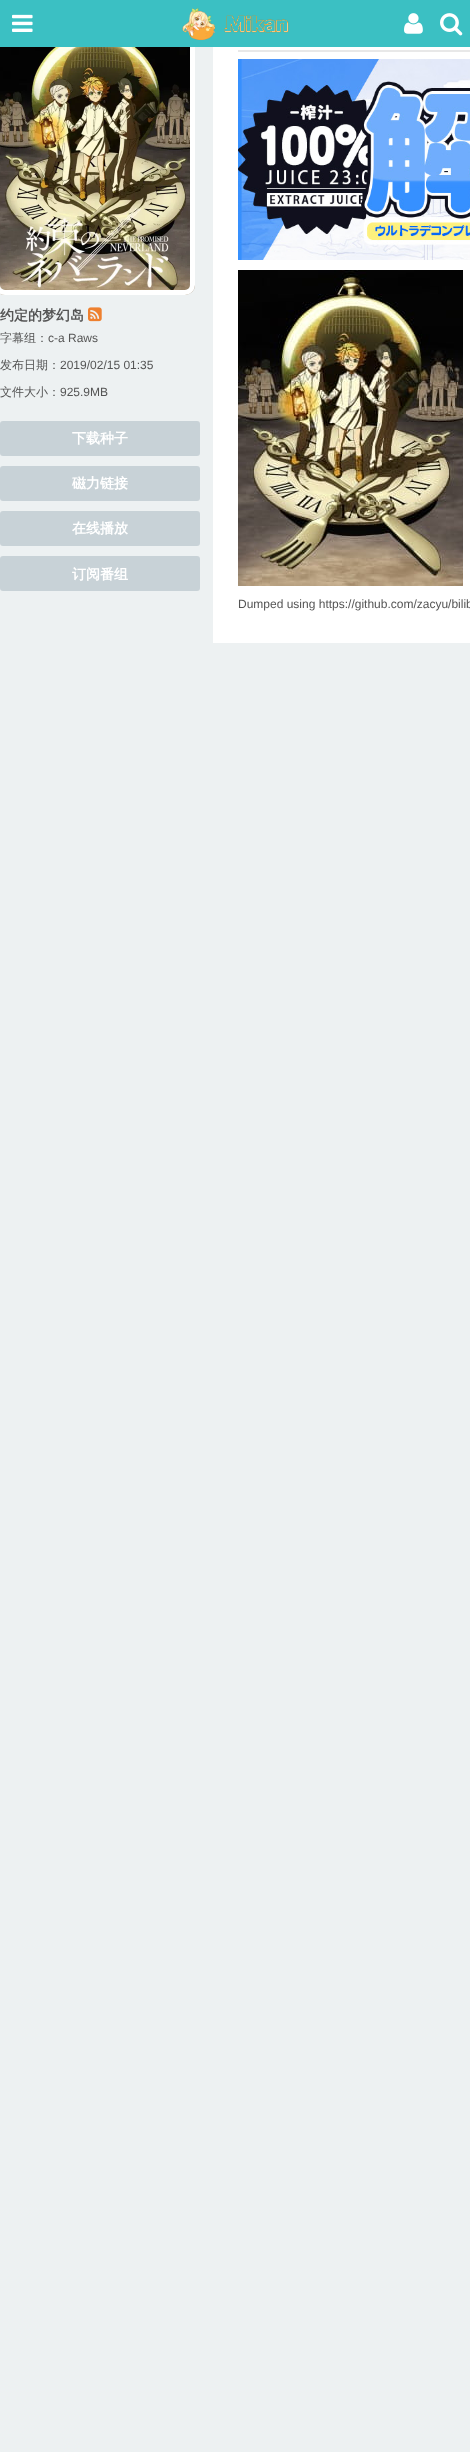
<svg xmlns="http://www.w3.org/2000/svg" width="470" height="2452">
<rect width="100%" height="100%" fill="#edf1f2"/>
<image x="0" y="47" width="195" height="248" href="media/6.png"/>
<rect x="-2.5" y="17.5" width="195" height="275" rx="7.5" fill="none" stroke="#fff" stroke-width="5"/>
<rect width="470" height="47" fill="#3bc0c3"/>
<image x="12" y="14" width="21" height="18" href="media/1.png"/>
<image x="182" y="8" width="34" height="33" href="media/2.png"/>
<image x="224" y="15" width="65" height="18" href="media/3.png"/>
<image x="404" y="13" width="19" height="21" href="media/4.png"/>
<image x="440" y="13" width="23" height="23" href="media/5.png"/>
<text x="0" y="320" style="font-family:WenQuanYi Zen Hei;font-size:14px;font-weight:bold;fill:#555">约定的梦幻岛</text>
<image x="88" y="307" width="14" height="15" href="media/7.png"/>
<text x="0" y="342" style="font-family:WenQuanYi Zen Hei;font-size:12px;font-weight:500;fill:#555">字幕组：</text>
<text x="48" y="342" style="font-family:Liberation Sans;font-size:12px;fill:#555">c-a Raws</text>
<text x="0" y="369" style="font-family:WenQuanYi Zen Hei;font-size:12px;font-weight:500;fill:#555">发布日期：</text>
<text x="60" y="369" style="font-family:Liberation Sans;font-size:12px;fill:#555">2019/02/15 01:35</text>
<text x="0" y="396" style="font-family:WenQuanYi Zen Hei;font-size:12px;font-weight:500;fill:#555">文件大小：</text>
<text x="60" y="396" style="font-family:Liberation Sans;font-size:12px;fill:#555">925.9MB</text>
<rect y="421" width="200" height="35" rx="3" fill="#c8d2d7"/>
<text x="72" y="443" style="font-family:WenQuanYi Zen Hei;font-size:14px;font-weight:bold;fill:#fff">下载种子</text>
<rect y="466" width="200" height="35" rx="3" fill="#c8d2d7"/>
<text x="72" y="488" style="font-family:WenQuanYi Zen Hei;font-size:14px;font-weight:bold;fill:#fff">磁力链接</text>
<rect y="511" width="200" height="35" rx="3" fill="#c8d2d7"/>
<text x="72" y="533" style="font-family:WenQuanYi Zen Hei;font-size:14px;font-weight:bold;fill:#fff">在线播放</text>
<rect y="556" width="200" height="35" rx="3" fill="#c8d2d7"/>
<text x="72" y="579" style="font-family:WenQuanYi Zen Hei;font-size:14px;font-weight:bold;fill:#fff">订阅番组</text>
<rect x="213" y="47" width="257" height="596" fill="#fff"/>
<rect x="238" y="50" width="232" height="2" fill="#e8e8e8"/>
<image x="238" y="59" width="232" height="201" href="media/8.png"/>
<image x="238" y="270" width="225" height="316" href="media/9.png"/>
<text x="238" y="608" style="font-family:Liberation Sans;font-size:12px;fill:#555">Dumped using https://github.com/zacyu/bilib</text>
</svg>
